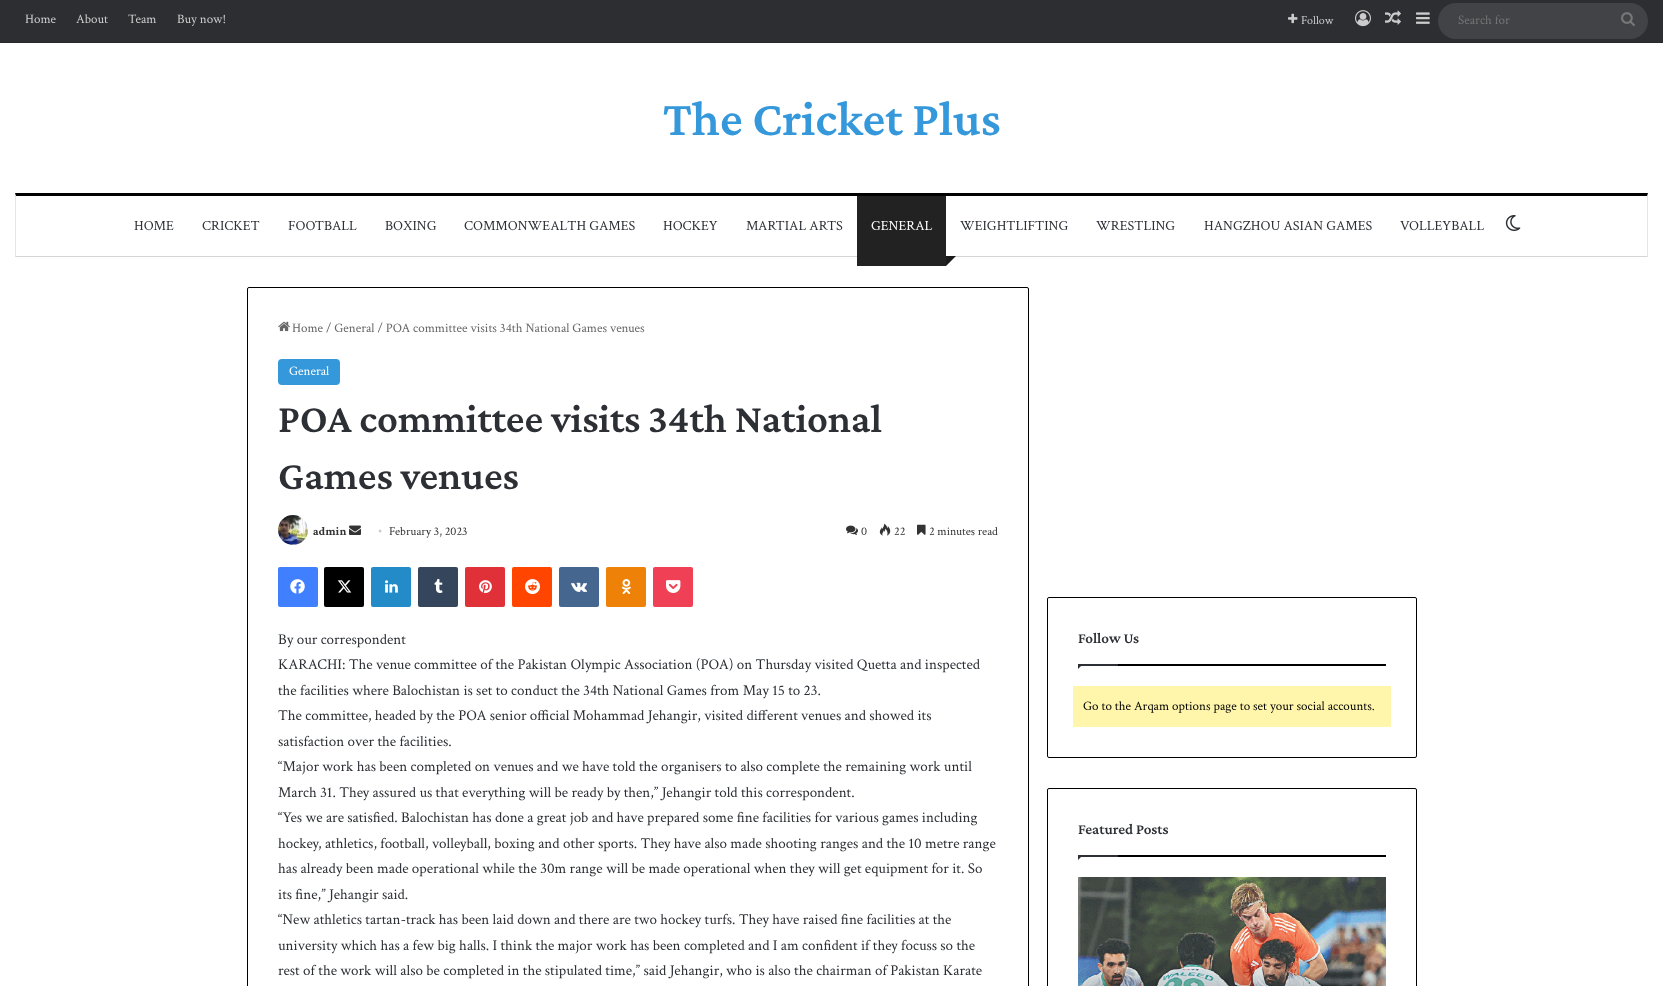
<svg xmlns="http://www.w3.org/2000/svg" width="1663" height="986">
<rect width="100%" height="100%" fill="#fff"/>
<rect width="1663" height="42" fill="#2c2e32"/>
<rect y="42" width="1663" height="1" fill="#28292d"/>
<text x="25" y="23" style="font-family:Crimson Text;font-size:13px;fill:#ccc">Home</text>
<text x="76" y="23" style="font-family:Crimson Text;font-size:13px;fill:#ccc">About</text>
<text x="128" y="23" style="font-family:Crimson Text;font-size:13px;fill:#ccc">Team</text>
<text x="177" y="23" style="font-family:Crimson Text;font-size:13px;fill:#ccc">Buy now!</text>
<image x="1288" y="13" width="10" height="11" href="media/1.png"/>
<text x="1301" y="24" style="font-family:Crimson Text;font-size:12px;fill:#ccc">Follow</text>
<image x="1355" y="10" width="16" height="17" href="media/2.png"/>
<image x="1385" y="10" width="16" height="15" href="media/3.png"/>
<image x="1416" y="12" width="14" height="12" href="media/4.png"/>
<rect x="1438" y="3" width="210" height="36" rx="18" fill="#414347"/>
<text x="1458" y="24" style="font-family:Crimson Text;font-size:13px;fill:#757575">Search for</text>
<image x="1621" y="12" width="14" height="14" href="media/5.png"/>
<text x="663" y="135" style="font-family:Crimson Pro;font-size:50px;font-weight:600;fill:#3498db">The Cricket Plus</text>
<path d="M15 193h1633l-1 3h-1631z" fill="#000"/>
<path d="M1648 193v64l-1-1v-60z" fill="#0000001a"/>
<path d="M1648 257h-1633l1-1h1631z" fill="#d5d5d5"/>
<path d="M15 257v-64l1 3v60z" fill="#0000001a"/>
<text x="134" y="230" style="font-family:Crimson Text;font-size:14px;fill:#2c2f34">HOME</text>
<text x="202" y="230" style="font-family:Crimson Text;font-size:14px;fill:#2c2f34">CRICKET</text>
<text x="288" y="230" style="font-family:Crimson Text;font-size:14px;fill:#2c2f34">FOOTBALL</text>
<text x="385" y="230" style="font-family:Crimson Text;font-size:14px;fill:#2c2f34">BOXING</text>
<text x="464" y="230" style="font-family:Crimson Text;font-size:14px;fill:#2c2f34">COMMONWEALTH GAMES</text>
<text x="663" y="230" style="font-family:Crimson Text;font-size:14px;fill:#2c2f34">HOCKEY</text>
<text x="746" y="230" style="font-family:Crimson Text;font-size:14px;fill:#2c2f34">MARTIAL ARTS</text>
<rect x="857" y="196" width="89" height="70" fill="#222"/>
<text x="871" y="230" style="font-family:Crimson Text;font-size:14px;fill:#fff">GENERAL</text>
<path d="M946 256h10l-10 10z" fill="#1b1b1b"/>
<text x="960" y="230" style="font-family:Crimson Text;font-size:14px;fill:#2c2f34">WEIGHTLIFTING</text>
<text x="1096" y="230" style="font-family:Crimson Text;font-size:14px;fill:#2c2f34">WRESTLING</text>
<text x="1204" y="230" style="font-family:Crimson Text;font-size:14px;fill:#2c2f34">HANGZHOU ASIAN GAMES</text>
<text x="1400" y="230" style="font-family:Crimson Text;font-size:14px;fill:#2c2f34">VOLLEYBALL</text>
<image x="1505" y="215" width="16" height="16" href="media/6.png"/>
<rect x="247.5" y="287.5" width="781" height="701" rx="1.5" fill="none" stroke="#000"/>
<image x="278" y="321" width="12" height="11" href="media/7.png"/>
<text x="292" y="332" style="font-family:Crimson Text;font-size:13px;fill:#666">Home / General / POA committee visits 34th National Games venues</text>
<rect x="278" y="359" width="62" height="26" rx="4" fill="#3498db"/>
<text x="289" y="375" style="font-family:Crimson Text;font-size:13px;fill:#fff">General</text>
<text x="278" y="432" style="font-family:Crimson Pro;font-size:41px;font-weight:600;fill:#2c2f34">POA committee visits 34th National</text>
<text x="278" y="489" style="font-family:Crimson Pro;font-size:41px;font-weight:600;fill:#2c2f34">Games venues</text>
<image x="278" y="515" width="30" height="30" href="media/8.png"/>
<text x="313" y="535" style="font-family:Crimson Text;font-size:12px;font-weight:bold;fill:#333">admin</text>
<image x="349" y="525" width="12" height="10" href="media/9.png"/>
<text x="378" y="535" style="font-family:Liberation Serif;font-size:12px;fill:#ccc">•</text>
<text x="389" y="535" style="font-family:Crimson Text;font-size:12px;fill:#333">February 3, 2023</text>
<image x="846" y="525" width="12" height="10" href="media/10.png"/>
<text x="861" y="535" style="font-family:Crimson Text;font-size:12px;fill:#333">0</text>
<image x="879" y="523" width="12" height="13" href="media/11.png"/>
<text x="894" y="535" style="font-family:Crimson Text;font-size:12px;fill:#333">22</text>
<image x="917" y="524" width="9" height="11" href="media/12.png"/>
<text x="929" y="535" style="font-family:Crimson Text;font-size:12px;fill:#333">2 minutes read</text>
<rect x="278" y="567" width="40" height="40" rx="2" fill="#4080ff"/>
<image x="290" y="579" width="15" height="15" href="media/13.png"/>
<rect x="324" y="567" width="40" height="40" rx="2" fill="#000"/>
<image x="337" y="580" width="15" height="13" href="media/14.png"/>
<rect x="371" y="567" width="40" height="40" rx="2" fill="#238cc8"/>
<image x="385" y="580" width="13" height="13" href="media/15.png"/>
<rect x="418" y="567" width="40" height="40" rx="2" fill="#35465c"/>
<image x="434" y="579" width="9" height="14" href="media/16.png"/>
<rect x="465" y="567" width="40" height="40" rx="2" fill="#e13138"/>
<image x="479" y="580" width="13" height="13" href="media/17.png"/>
<rect x="512" y="567" width="40" height="40" rx="2" fill="#ff4500"/>
<image x="525" y="579" width="15" height="16" href="media/18.png"/>
<rect x="559" y="567" width="40" height="40" rx="2" fill="#45668e"/>
<image x="571" y="582" width="16" height="10" href="media/19.png"/>
<rect x="606" y="567" width="40" height="40" rx="2" fill="#ee8208"/>
<image x="621" y="579" width="10" height="15" href="media/20.png"/>
<rect x="653" y="567" width="40" height="40" rx="2" fill="#ef4056"/>
<image x="666" y="580" width="15" height="13" href="media/21.png"/>
<text x="278" y="644" style="font-family:Crimson Text;font-size:15px;fill:#2c2f34">By our correspondent</text>
<text x="278" y="669" style="font-family:Crimson Text;font-size:15px;fill:#2c2f34">KARACHI: The venue committee of the Pakistan Olympic Association (POA) on Thursday visited Quetta and inspected</text>
<text x="278" y="695" style="font-family:Crimson Text;font-size:15px;fill:#2c2f34">the facilities where Balochistan is set to conduct the 34th National Games from May 15 to 23.</text>
<text x="278" y="720" style="font-family:Crimson Text;font-size:15px;fill:#2c2f34">The committee, headed by the POA senior official Mohammad Jehangir, visited different venues and showed its</text>
<text x="278" y="746" style="font-family:Crimson Text;font-size:15px;fill:#2c2f34">satisfaction over the facilities.</text>
<text x="278" y="771" style="font-family:Crimson Text;font-size:15px;fill:#2c2f34">“Major work has been completed on venues and we have told the organisers to also complete the remaining work until</text>
<text x="278" y="797" style="font-family:Crimson Text;font-size:15px;fill:#2c2f34">March 31. They assured us that everything will be ready by then,” Jehangir told this correspondent.</text>
<text x="278" y="822" style="font-family:Crimson Text;font-size:15px;fill:#2c2f34">“Yes we are satisfied. Balochistan has done a great job and have prepared some fine facilities for various games including</text>
<text x="278" y="848" style="font-family:Crimson Text;font-size:15px;fill:#2c2f34">hockey, athletics, football, volleyball, boxing and other sports. They have also made shooting ranges and the 10 metre range</text>
<text x="278" y="873" style="font-family:Crimson Text;font-size:15px;fill:#2c2f34">has already been made operational while the 30m range will be made operational when they will get equipment for it. So</text>
<text x="278" y="899" style="font-family:Crimson Text;font-size:15px;fill:#2c2f34">its fine,” Jehangir said.</text>
<text x="278" y="924" style="font-family:Crimson Text;font-size:15px;fill:#2c2f34">“New athletics tartan-track has been laid down and there are two hockey turfs. They have raised fine facilities at the</text>
<text x="278" y="950" style="font-family:Crimson Text;font-size:15px;fill:#2c2f34">university which has a few big halls. I think the major work has been completed and I am confident if they focuss so the</text>
<text x="278" y="975" style="font-family:Crimson Text;font-size:15px;fill:#2c2f34">rest of the work will also be completed in the stipulated time,” said Jehangir, who is also the chairman of Pakistan Karate</text>
<rect x="1047.5" y="597.5" width="369" height="160" rx="1.5" fill="none" stroke="#000"/>
<rect x="1118" y="664" width="268" height="2" fill="#000"/>
<text x="1078" y="643" style="font-family:Crimson Pro;font-size:15px;font-weight:600;fill:#2c2f34">Follow Us</text>
<path d="M1078 664h5l-5 5z" fill="#2c2f34"/>
<rect x="1078" y="664" width="40" height="2" fill="#2c2f34"/>
<rect x="1073" y="686" width="318" height="41" fill="#fff6ac"/>
<text x="1083" y="710" style="font-family:Crimson Text;font-size:13px;fill:#000">Go to the Arqam options page to set your social accounts.</text>
<rect x="1047.5" y="788.5" width="369" height="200" rx="1.5" fill="none" stroke="#000"/>
<rect x="1118" y="855" width="268" height="2" fill="#000"/>
<text x="1078" y="834" style="font-family:Crimson Pro;font-size:15px;font-weight:600;fill:#2c2f34">Featured Posts</text>
<path d="M1078 855h5l-5 5z" fill="#2c2f34"/>
<rect x="1078" y="855" width="40" height="2" fill="#2c2f34"/>
<image x="1078" y="877" width="308" height="109" href="media/22.png"/>
</svg>
